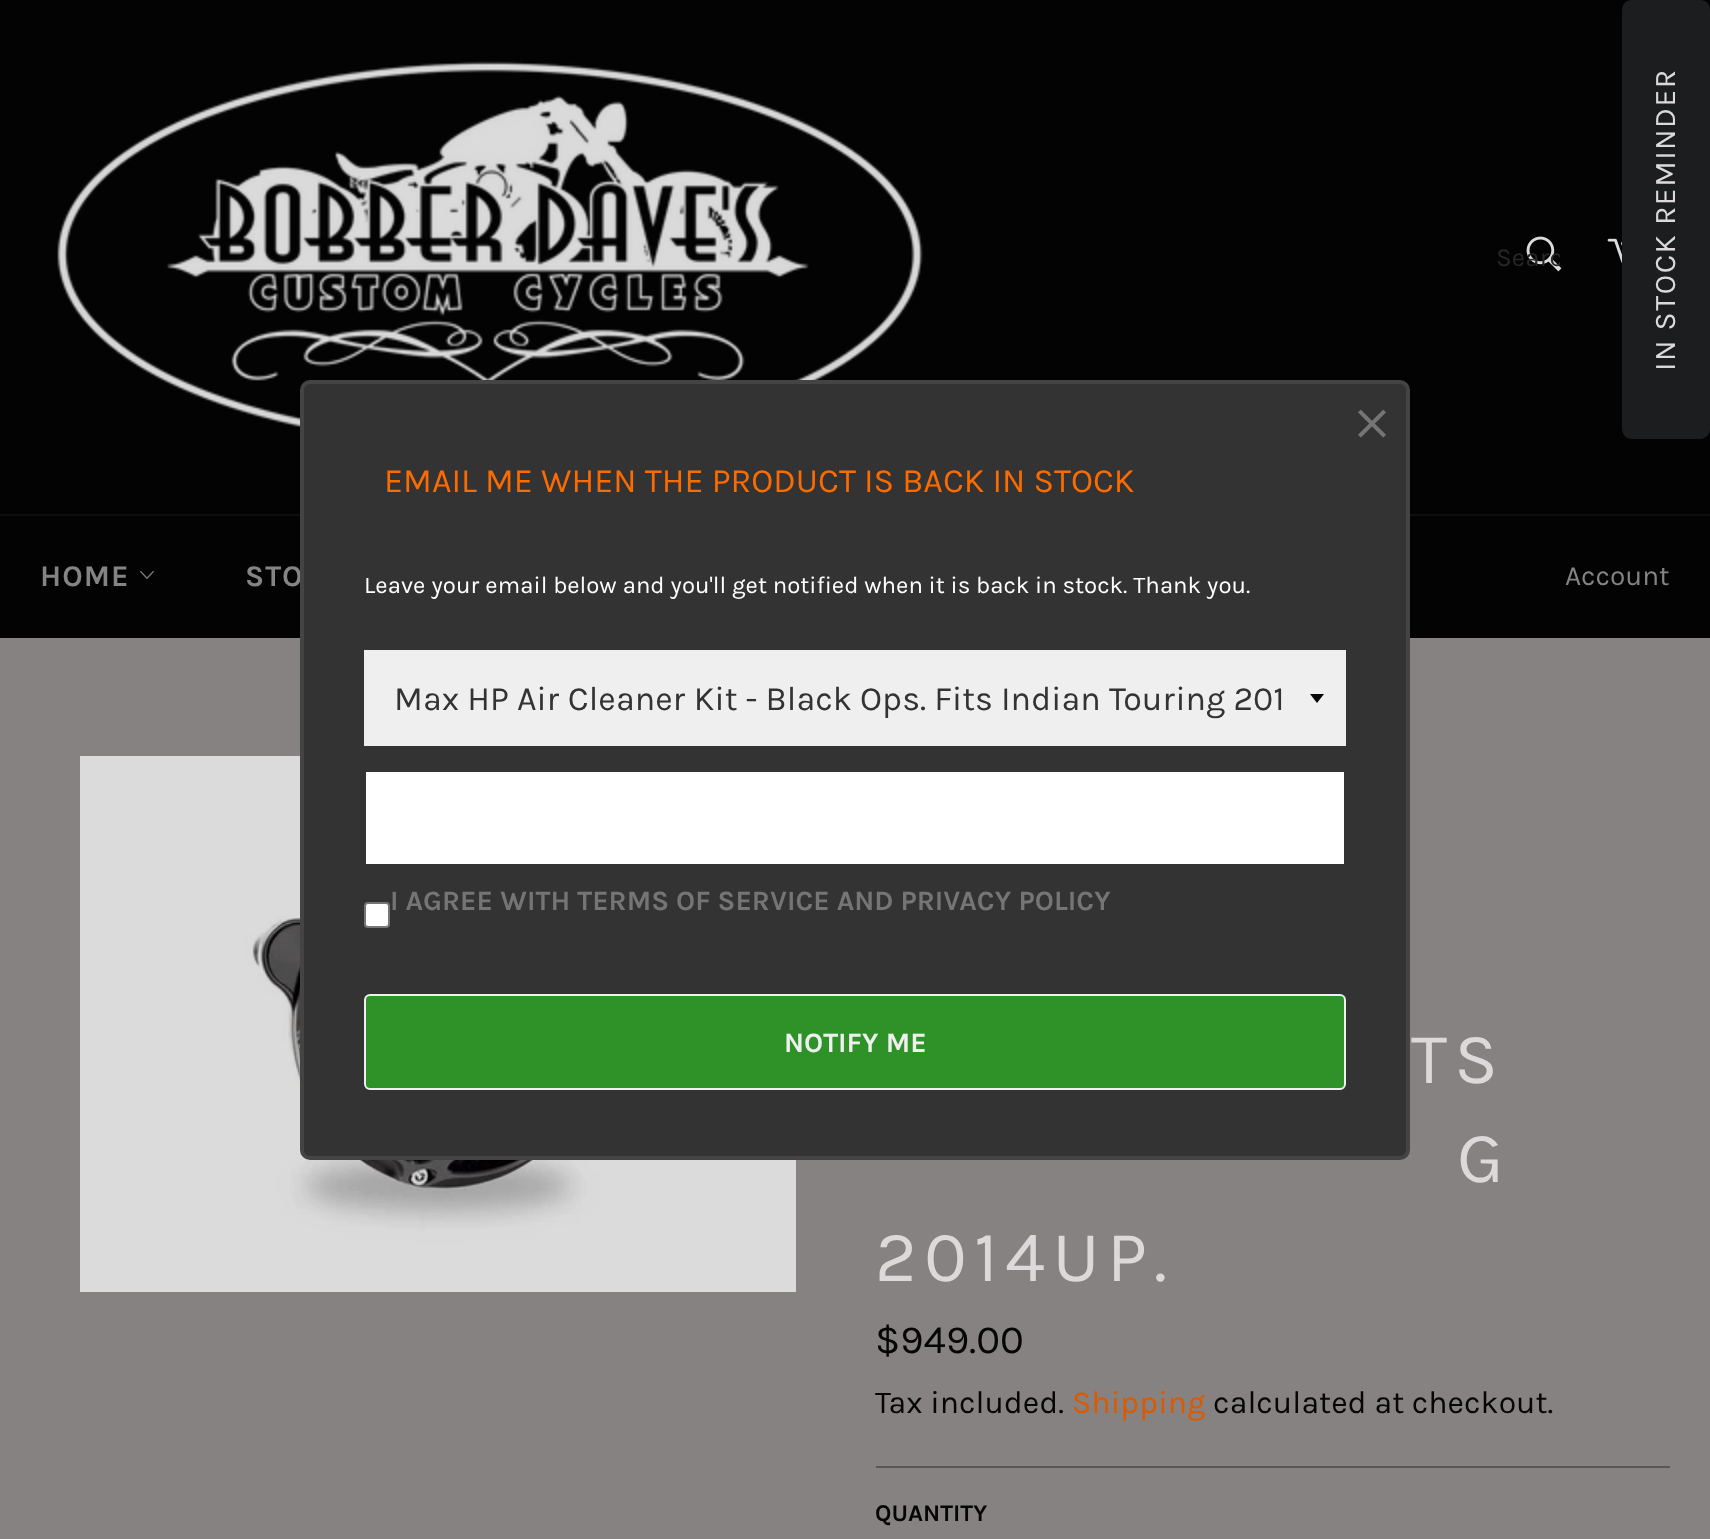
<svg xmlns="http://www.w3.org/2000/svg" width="1710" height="1539">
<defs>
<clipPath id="clip1"><rect x="1496" y="242" width="64" height="30"/></clipPath>
</defs>
<rect width="100%" height="100%" fill="#030303"/>
<path d="M1622 429v-419c0-6 4-10 10-10h68c6 0 10 4 10 10v419c0 5-4 10-10 10h-68c-6 0-10-5-10-10z" fill="#1c1d1e"/>
<text x="1675" y="371" transform="rotate(-90 1675 371)" style="font-family:Karla;font-size:30px;letter-spacing:1.5px;fill:#dbd9d9">IN STOCK REMINDER</text>
<image x="57" y="61" width="866" height="367" href="media/1.png"/>
<image x="1526" y="236" width="36" height="36" href="media/2.png"/>
<g clip-path="url(#clip1)">
<text x="1496" y="266" style="font-family:Karla;font-size:26px;fill:#272727">Searc</text>
</g>
<image x="1607" y="238" width="15" height="25" href="media/3.png"/>
<rect y="514" width="1710" height="2" fill="#0e0e0e"/>
<text x="40" y="586" style="font-family:Karla;font-size:30px;font-weight:bold;letter-spacing:1px;fill:#848484">HOME</text>
<image x="140" y="570" width="14" height="9" href="media/4.png"/>
<text x="245" y="586" style="font-family:Karla;font-size:30px;font-weight:bold;letter-spacing:1px;fill:#848484">STO</text>
<text x="1565" y="585" style="font-family:Karla;font-size:28px;fill:#848484">Account</text>
<rect y="638" width="1710" height="901" fill="#878282"/>
<image x="80" y="756" width="716" height="536" href="media/6.png"/>
<rect x="302" y="382" width="1106" height="776" rx="8" fill="#333" stroke="#444" stroke-width="4"/>
<image x="1358" y="409" width="28" height="29" href="media/5.png"/>
<text x="384" y="492" style="font-family:Karla;font-size:34px;fill:#fa6b01">EMAIL ME WHEN THE PRODUCT IS BACK IN STOCK</text>
<text x="364" y="593" style="font-family:Karla;font-size:24px;fill:#fff">Leave your email below and you'll get notified when it is back in stock. Thank you.</text>
<rect x="364" y="650" width="982" height="96" fill="#efefef"/>
<path d="M1310 694l7 9l7-9z" fill="#070707"/>
<text x="394" y="710" style="font-family:Karla;font-size:34px;fill:#333">Max HP Air Cleaner Kit - Black Ops. Fits Indian Touring 201</text>
<rect x="366" y="772" width="978" height="92" fill="#fff"/>
<rect x="365" y="903" width="24" height="24" rx="3" fill="#fff" stroke="#767676" stroke-width="2"/>
<text x="390" y="910" style="font-family:Karla;font-size:28px;font-weight:bold;fill:#757575">I AGREE WITH TERMS OF SERVICE AND PRIVACY POLICY</text>
<rect x="365" y="995" width="980" height="94" rx="5" fill="#2e9229" stroke="#efefef" stroke-width="2"/>
<text x="784" y="1052" style="font-family:Karla;font-size:28px;font-weight:bold;fill:#efefef">NOTIFY ME</text>
<text x="1411" y="1083" style="font-family:Karla;font-size:72px;letter-spacing:7.25px;fill:#dbd9d9">TS</text>
<text x="1457" y="1182" style="font-family:Karla;font-size:72px;letter-spacing:7.25px;fill:#dbd9d9">G</text>
<text x="875" y="1281" style="font-family:Karla;font-size:72px;letter-spacing:7.25px;fill:#dbd9d9">2014UP.</text>
<text x="875" y="1353" style="font-family:Karla;font-size:40px;fill:#060606">$949.00</text>
<text x="875" y="1413" style="font-family:Karla;font-size:32px;fill:#060606">Tax included.</text>
<text x="1072" y="1413" style="font-family:Karla;font-size:32px;fill:#db5a00">Shipping</text>
<text x="1213" y="1413" style="font-family:Karla;font-size:32px;fill:#060606">calculated at checkout.</text>
<rect x="876" y="1466" width="794" height="2" fill="#5a5656"/>
<text x="875" y="1521" style="font-family:Karla;font-size:24px;font-weight:bold;fill:#060606">QUANTITY</text>
</svg>
